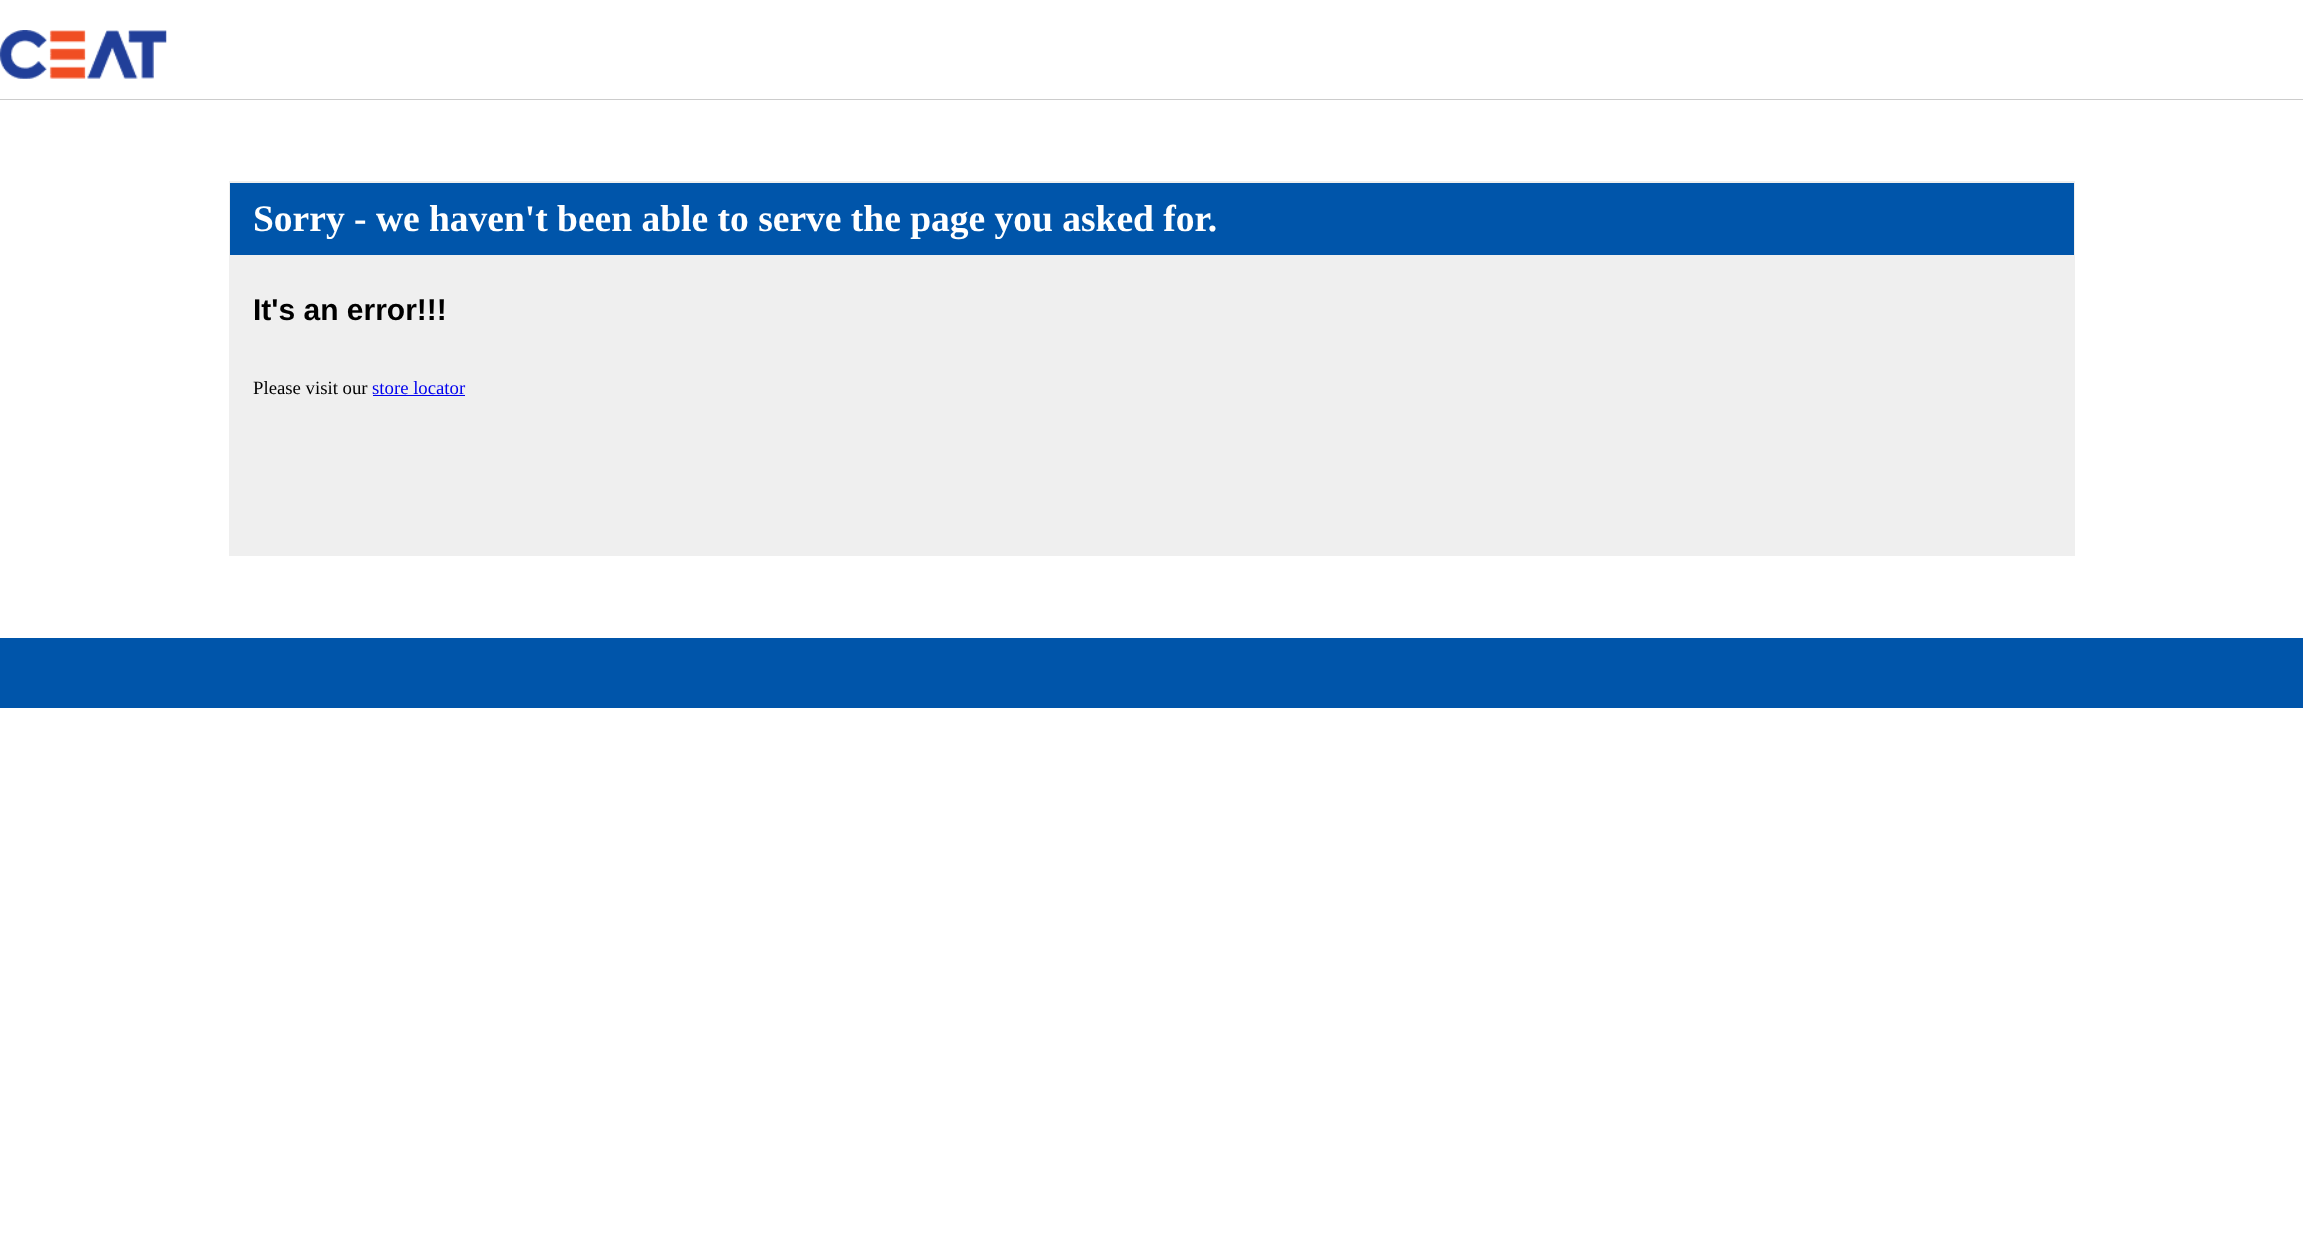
<svg xmlns="http://www.w3.org/2000/svg" width="2303" height="1239">
<rect width="100%" height="100%" fill="#fff"/>
<rect y="99" width="2303" height="1" fill="#ccc"/>
<image x="0" y="30" width="167" height="49" href="media/1.png"/>
<rect x="229" y="181" width="1846" height="375" fill="#efefef"/>
<rect x="230" y="183" width="1844" height="72" fill="#05a"/>
<text x="253" y="231" style="font-family:Liberation Serif;font-size:37.5px;font-weight:bold;fill:#fff">Sorry - we haven't been able to serve the page you asked for.</text>
<text x="253" y="320" style="font-family:Liberation Sans;font-size:30px;font-weight:bold;fill:#000">It's an error!!!</text>
<text x="253" y="394" style="font-family:Liberation Serif;font-size:18.75px;fill:#000">Please visit our</text>
<text x="372" y="394" style="font-family:Liberation Serif;font-size:18.75px;fill:#00e">store locator</text>
<rect x="373" y="395" width="92" height="1" fill="#00e"/>
<rect y="638" width="2303" height="70" fill="#05a"/>
</svg>
